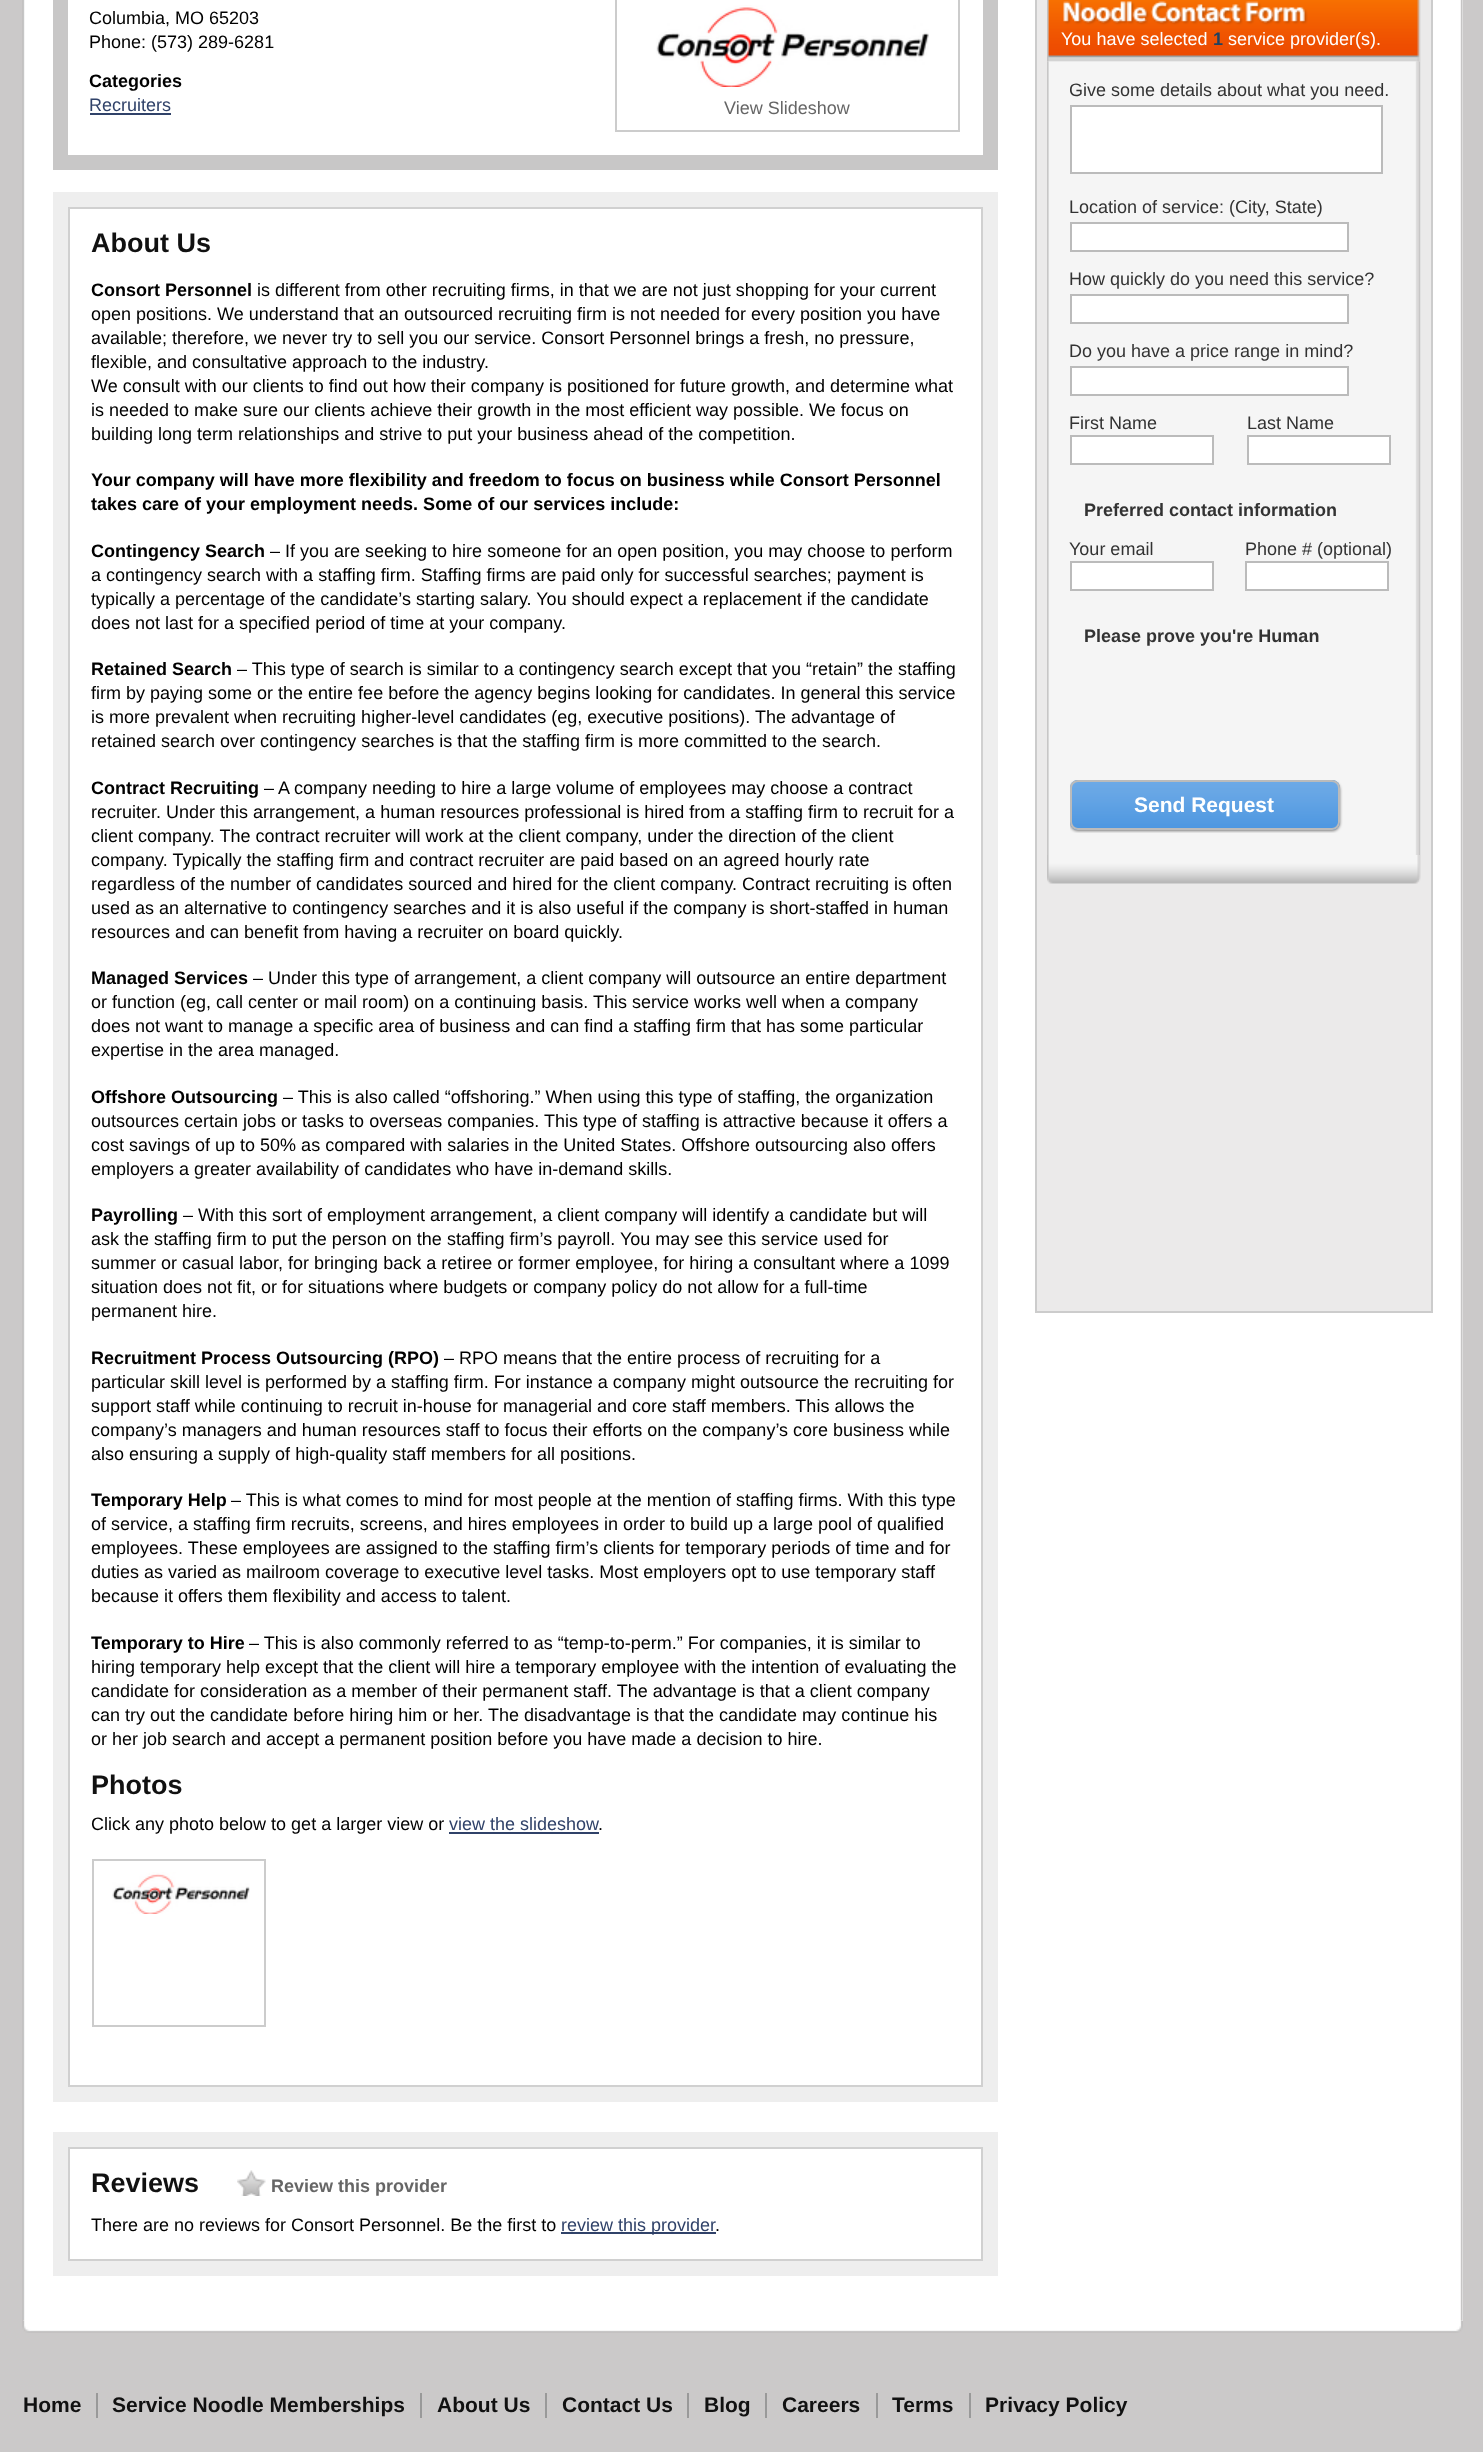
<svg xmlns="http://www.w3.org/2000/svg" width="1483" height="2452">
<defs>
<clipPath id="clip1"><rect x="1070" y="78" width="339" height="102"/></clipPath>
<clipPath id="clip2"><rect x="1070" y="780" width="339" height="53"/></clipPath>
</defs>
<rect width="100%" height="100%" fill="#cbc9c9"/>
<rect x="23" width="1440" height="2321" fill="#fff"/>
<image x="22" y="0" width="1441" height="2321" href="media/1.png"/>
<rect x="60.5" y="-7.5" width="930" height="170" fill="none" stroke="#c8c7c7" stroke-width="15"/>
<text x="89" y="24" style="font-family:Liberation Sans;font-size:18px;fill:#000">Columbia, MO 65203</text>
<text x="89" y="48" style="font-family:Liberation Sans;font-size:18px;fill:#000">Phone: (573) 289-6281</text>
<text x="89" y="87" style="font-family:Liberation Sans;font-size:18px;font-weight:bold;fill:#000">Categories</text>
<text x="89" y="111" style="font-family:Liberation Sans;font-size:18px;fill:#304269">Recruiters</text>
<rect x="90" y="113" width="81" height="2" fill="#304269"/>
<rect x="616" y="-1" width="343" height="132" fill="none" stroke="#ccc" stroke-width="2"/>
<image x="656" y="5" width="273" height="82" href="media/2.png"/>
<text x="724" y="114" style="font-family:Liberation Sans;font-size:18px;fill:#666">View Slideshow</text>
<rect x="53" y="192" width="945" height="1910" fill="#eee"/>
<rect x="69" y="208" width="913" height="1878" fill="#fff" stroke="#d0d0d0" stroke-width="2"/>
<text x="91" y="252" style="font-family:Liberation Sans;font-size:27px;font-weight:bold;fill:#111">About Us</text>
<text x="91" y="296" style="font-family:Liberation Sans;font-size:18px;font-weight:bold;fill:#000">Consort Personnel</text>
<text x="257" y="296" style="font-family:Liberation Sans;font-size:18px;fill:#000">is different from other recruiting firms, in that we are not just shopping for your current</text>
<text x="91" y="320" style="font-family:Liberation Sans;font-size:18px;fill:#000">open positions. We understand that an outsourced recruiting firm is not needed for every position you have</text>
<text x="91" y="344" style="font-family:Liberation Sans;font-size:18px;fill:#000">available; therefore, we never try to sell you our service. Consort Personnel brings a fresh, no pressure,</text>
<text x="91" y="368" style="font-family:Liberation Sans;font-size:18px;fill:#000">flexible, and consultative approach to the industry.</text>
<text x="91" y="392" style="font-family:Liberation Sans;font-size:18px;fill:#000">We consult with our clients to find out how their company is positioned for future growth, and determine what</text>
<text x="91" y="416" style="font-family:Liberation Sans;font-size:18px;fill:#000">is needed to make sure our clients achieve their growth in the most efficient way possible. We focus on</text>
<text x="91" y="440" style="font-family:Liberation Sans;font-size:18px;fill:#000">building long term relationships and strive to put your business ahead of the competition.</text>
<text x="91" y="486" style="font-family:Liberation Sans;font-size:18px;font-weight:bold;fill:#000">Your company will have more flexibility and freedom to focus on business while Consort Personnel</text>
<text x="91" y="510" style="font-family:Liberation Sans;font-size:18px;font-weight:bold;fill:#000">takes care of your employment needs. Some of our services include:</text>
<text x="91" y="557" style="font-family:Liberation Sans;font-size:18px;font-weight:bold;fill:#000">Contingency Search</text>
<text x="270" y="557" style="font-family:Liberation Sans;font-size:18px;fill:#000">– If you are seeking to hire someone for an open position, you may choose to perform</text>
<text x="91" y="581" style="font-family:Liberation Sans;font-size:18px;fill:#000">a contingency search with a staffing firm. Staffing firms are paid only for successful searches; payment is</text>
<text x="91" y="605" style="font-family:Liberation Sans;font-size:18px;fill:#000">typically a percentage of the candidate’s starting salary. You should expect a replacement if the candidate</text>
<text x="91" y="629" style="font-family:Liberation Sans;font-size:18px;fill:#000">does not last for a specified period of time at your company.</text>
<text x="91" y="675" style="font-family:Liberation Sans;font-size:18px;font-weight:bold;fill:#000">Retained Search</text>
<text x="237" y="675" style="font-family:Liberation Sans;font-size:18px;fill:#000">– This type of search is similar to a contingency search except that you “retain” the staffing</text>
<text x="91" y="699" style="font-family:Liberation Sans;font-size:18px;fill:#000">firm by paying some or the entire fee before the agency begins looking for candidates. In general this service</text>
<text x="91" y="723" style="font-family:Liberation Sans;font-size:18px;fill:#000">is more prevalent when recruiting higher-level candidates (eg, executive positions). The advantage of</text>
<text x="91" y="747" style="font-family:Liberation Sans;font-size:18px;fill:#000">retained search over contingency searches is that the staffing firm is more committed to the search.</text>
<text x="91" y="794" style="font-family:Liberation Sans;font-size:18px;font-weight:bold;fill:#000">Contract Recruiting</text>
<text x="264" y="794" style="font-family:Liberation Sans;font-size:18px;fill:#000">– A company needing to hire a large volume of employees may choose a contract</text>
<text x="91" y="818" style="font-family:Liberation Sans;font-size:18px;fill:#000">recruiter. Under this arrangement, a human resources professional is hired from a staffing firm to recruit for a</text>
<text x="91" y="842" style="font-family:Liberation Sans;font-size:18px;fill:#000">client company. The contract recruiter will work at the client company, under the direction of the client</text>
<text x="91" y="866" style="font-family:Liberation Sans;font-size:18px;fill:#000">company. Typically the staffing firm and contract recruiter are paid based on an agreed hourly rate</text>
<text x="91" y="890" style="font-family:Liberation Sans;font-size:18px;fill:#000">regardless of the number of candidates sourced and hired for the client company. Contract recruiting is often</text>
<text x="91" y="914" style="font-family:Liberation Sans;font-size:18px;fill:#000">used as an alternative to contingency searches and it is also useful if the company is short-staffed in human</text>
<text x="91" y="938" style="font-family:Liberation Sans;font-size:18px;fill:#000">resources and can benefit from having a recruiter on board quickly.</text>
<text x="91" y="984" style="font-family:Liberation Sans;font-size:18px;font-weight:bold;fill:#000">Managed Services</text>
<text x="253" y="984" style="font-family:Liberation Sans;font-size:18px;fill:#000">– Under this type of arrangement, a client company will outsource an entire department</text>
<text x="91" y="1008" style="font-family:Liberation Sans;font-size:18px;fill:#000">or function (eg, call center or mail room) on a continuing basis. This service works well when a company</text>
<text x="91" y="1032" style="font-family:Liberation Sans;font-size:18px;fill:#000">does not want to manage a specific area of business and can find a staffing firm that has some particular</text>
<text x="91" y="1056" style="font-family:Liberation Sans;font-size:18px;fill:#000">expertise in the area managed.</text>
<text x="91" y="1103" style="font-family:Liberation Sans;font-size:18px;font-weight:bold;fill:#000">Offshore Outsourcing</text>
<text x="283" y="1103" style="font-family:Liberation Sans;font-size:18px;fill:#000">– This is also called “offshoring.” When using this type of staffing, the organization</text>
<text x="91" y="1127" style="font-family:Liberation Sans;font-size:18px;fill:#000">outsources certain jobs or tasks to overseas companies. This type of staffing is attractive because it offers a</text>
<text x="91" y="1151" style="font-family:Liberation Sans;font-size:18px;fill:#000">cost savings of up to 50% as compared with salaries in the United States. Offshore outsourcing also offers</text>
<text x="91" y="1175" style="font-family:Liberation Sans;font-size:18px;fill:#000">employers a greater availability of candidates who have in-demand skills.</text>
<text x="91" y="1221" style="font-family:Liberation Sans;font-size:18px;font-weight:bold;fill:#000">Payrolling</text>
<text x="183" y="1221" style="font-family:Liberation Sans;font-size:18px;fill:#000">– With this sort of employment arrangement, a client company will identify a candidate but will</text>
<text x="91" y="1245" style="font-family:Liberation Sans;font-size:18px;fill:#000">ask the staffing firm to put the person on the staffing firm’s payroll. You may see this service used for</text>
<text x="91" y="1269" style="font-family:Liberation Sans;font-size:18px;fill:#000">summer or casual labor, for bringing back a retiree or former employee, for hiring a consultant where a 1099</text>
<text x="91" y="1293" style="font-family:Liberation Sans;font-size:18px;fill:#000">situation does not fit, or for situations where budgets or company policy do not allow for a full-time</text>
<text x="91" y="1317" style="font-family:Liberation Sans;font-size:18px;fill:#000">permanent hire.</text>
<text x="91" y="1364" style="font-family:Liberation Sans;font-size:18px;font-weight:bold;fill:#000">Recruitment Process Outsourcing (RPO)</text>
<text x="444" y="1364" style="font-family:Liberation Sans;font-size:18px;fill:#000">– RPO means that the entire process of recruiting for a</text>
<text x="91" y="1388" style="font-family:Liberation Sans;font-size:18px;fill:#000">particular skill level is performed by a staffing firm. For instance a company might outsource the recruiting for</text>
<text x="91" y="1412" style="font-family:Liberation Sans;font-size:18px;fill:#000">support staff while continuing to recruit in-house for managerial and core staff members. This allows the</text>
<text x="91" y="1436" style="font-family:Liberation Sans;font-size:18px;fill:#000">company’s managers and human resources staff to focus their efforts on the company’s core business while</text>
<text x="91" y="1460" style="font-family:Liberation Sans;font-size:18px;fill:#000">also ensuring a supply of high-quality staff members for all positions.</text>
<text x="91" y="1506" style="font-family:Liberation Sans;font-size:18px;font-weight:bold;fill:#000">Temporary Help</text>
<text x="231" y="1506" style="font-family:Liberation Sans;font-size:18px;fill:#000">– This is what comes to mind for most people at the mention of staffing firms. With this type</text>
<text x="91" y="1530" style="font-family:Liberation Sans;font-size:18px;fill:#000">of service, a staffing firm recruits, screens, and hires employees in order to build up a large pool of qualified</text>
<text x="91" y="1554" style="font-family:Liberation Sans;font-size:18px;fill:#000">employees. These employees are assigned to the staffing firm’s clients for temporary periods of time and for</text>
<text x="91" y="1578" style="font-family:Liberation Sans;font-size:18px;fill:#000">duties as varied as mailroom coverage to executive level tasks. Most employers opt to use temporary staff</text>
<text x="91" y="1602" style="font-family:Liberation Sans;font-size:18px;fill:#000">because it offers them flexibility and access to talent.</text>
<text x="91" y="1649" style="font-family:Liberation Sans;font-size:18px;font-weight:bold;fill:#000">Temporary to Hire</text>
<text x="249" y="1649" style="font-family:Liberation Sans;font-size:18px;fill:#000">– This is also commonly referred to as “temp-to-perm.” For companies, it is similar to</text>
<text x="91" y="1673" style="font-family:Liberation Sans;font-size:18px;fill:#000">hiring temporary help except that the client will hire a temporary employee with the intention of evaluating the</text>
<text x="91" y="1697" style="font-family:Liberation Sans;font-size:18px;fill:#000">candidate for consideration as a member of their permanent staff. The advantage is that a client company</text>
<text x="91" y="1721" style="font-family:Liberation Sans;font-size:18px;fill:#000">can try out the candidate before hiring him or her. The disadvantage is that the candidate may continue his</text>
<text x="91" y="1745" style="font-family:Liberation Sans;font-size:18px;fill:#000">or her job search and accept a permanent position before you have made a decision to hire.</text>
<text x="91" y="1794" style="font-family:Liberation Sans;font-size:27px;font-weight:bold;fill:#111">Photos</text>
<text x="91" y="1830" style="font-family:Liberation Sans;font-size:18px;fill:#000">Click any photo below to get a larger view or</text>
<text x="449" y="1830" style="font-family:Liberation Sans;font-size:18px;fill:#304269">view the slideshow</text>
<rect x="449" y="1832" width="150" height="2" fill="#304269"/>
<text x="598" y="1830" style="font-family:Liberation Sans;font-size:18px;fill:#000">.</text>
<rect x="93" y="1860" width="172" height="166" fill="none" stroke="#ccc" stroke-width="2"/>
<image x="112" y="1872" width="138" height="42" href="media/3.png"/>
<rect x="53" y="2132" width="945" height="144" fill="#eee"/>
<rect x="69" y="2148" width="913" height="112" fill="#fff" stroke="#d0d0d0" stroke-width="2"/>
<text x="91" y="2192" style="font-family:Liberation Sans;font-size:27px;font-weight:bold;fill:#111">Reviews</text>
<image x="237" y="2170" width="29" height="26" href="media/4.png"/>
<text x="271" y="2192" style="font-family:Liberation Sans;font-size:18px;font-weight:bold;fill:#666">Review this provider</text>
<text x="91" y="2231" style="font-family:Liberation Sans;font-size:18px;fill:#000">There are no reviews for Consort Personnel. Be the first to</text>
<rect x="561" y="2232" width="155" height="2" fill="#304269"/>
<text x="561" y="2231" style="font-family:Liberation Sans;font-size:18px;fill:#304269">review this provider</text>
<text x="715" y="2231" style="font-family:Liberation Sans;font-size:18px;fill:#000">.</text>
<rect x="1036" y="-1" width="396" height="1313" fill="#ebeaea" stroke="#ccc" stroke-width="2"/>
<image x="1047" y="0" width="374" height="62" href="media/5.png"/>
<text x="1061" y="45" style="font-family:Liberation Sans;font-size:18px;fill:#fff">You have selected</text>
<text x="1213" y="45" style="font-family:Liberation Sans;font-size:18px;font-weight:bold;fill:#1e4262">1</text>
<text x="1228" y="45" style="font-family:Liberation Sans;font-size:18px;fill:#fff">service provider(s).</text>
<image x="1047" y="61" width="374" height="794" href="media/6.png"/>
<g clip-path="url(#clip1)">
<text x="1069" y="96" style="font-family:Liberation Sans;font-size:18px;fill:#333">Give some details about what you need.</text>
</g>
<rect x="1071" y="106" width="311" height="67" fill="#fff" stroke="#bbb" stroke-width="2"/>
<text x="1069" y="213" style="font-family:Liberation Sans;font-size:18px;fill:#333">Location of service: (City, State)</text>
<rect x="1071" y="223" width="277" height="28" fill="#fff" stroke="#bbb" stroke-width="2"/>
<text x="1069" y="285" style="font-family:Liberation Sans;font-size:18px;fill:#333">How quickly do you need this service?</text>
<rect x="1071" y="295" width="277" height="28" fill="#fff" stroke="#bbb" stroke-width="2"/>
<text x="1069" y="357" style="font-family:Liberation Sans;font-size:18px;fill:#333">Do you have a price range in mind?</text>
<rect x="1071" y="367" width="277" height="28" fill="#fff" stroke="#bbb" stroke-width="2"/>
<text x="1069" y="429" style="font-family:Liberation Sans;font-size:18px;fill:#333">First Name</text>
<text x="1247" y="429" style="font-family:Liberation Sans;font-size:18px;fill:#333">Last Name</text>
<rect x="1071" y="436" width="142" height="28" fill="#fff" stroke="#bbb" stroke-width="2"/>
<rect x="1248" y="436" width="142" height="28" fill="#fff" stroke="#bbb" stroke-width="2"/>
<text x="1084" y="516" style="font-family:Liberation Sans;font-size:18px;font-weight:bold;fill:#333">Preferred contact information</text>
<text x="1069" y="555" style="font-family:Liberation Sans;font-size:18px;fill:#333">Your email</text>
<text x="1245" y="555" style="font-family:Liberation Sans;font-size:18px;fill:#333">Phone # (optional)</text>
<rect x="1071" y="562" width="142" height="28" fill="#fff" stroke="#bbb" stroke-width="2"/>
<rect x="1246" y="562" width="142" height="28" fill="#fff" stroke="#bbb" stroke-width="2"/>
<text x="1084" y="642" style="font-family:Liberation Sans;font-size:18px;font-weight:bold;fill:#333">Please prove you're Human</text>
<g clip-path="url(#clip2)">
<rect x="1070" y="782" width="270" height="49" rx="8" fill="#00000080" filter="blur(1.5px)"/>
</g>
<rect x="1070" y="780" width="270" height="50" rx="8" fill="#3c8dde"/>
<image x="1070" y="781" width="270" height="48" href="media/7.png"/>
<rect x="1071" y="781" width="268" height="48" rx="7" fill="none" stroke="#bbb" stroke-width="2"/>
<text x="1134" y="812" style="font-family:Liberation Sans;font-size:21px;font-weight:bold;fill:#fff">Send Request</text>
<image x="1047" y="855" width="374" height="29" href="media/8.png"/>
<image x="22" y="2320" width="1441" height="13" href="media/9.png"/>
<rect x="96" y="2393" width="2" height="25" fill="#999"/>
<text x="23" y="2412" style="font-family:Liberation Sans;font-size:21px;font-weight:bold;fill:#111">Home</text>
<rect x="420" y="2393" width="2" height="25" fill="#999"/>
<text x="112" y="2412" style="font-family:Liberation Sans;font-size:21px;font-weight:bold;fill:#111">Service Noodle Memberships</text>
<rect x="545" y="2393" width="2" height="25" fill="#999"/>
<text x="437" y="2412" style="font-family:Liberation Sans;font-size:21px;font-weight:bold;fill:#111">About Us</text>
<rect x="687" y="2393" width="2" height="25" fill="#999"/>
<text x="562" y="2412" style="font-family:Liberation Sans;font-size:21px;font-weight:bold;fill:#111">Contact Us</text>
<rect x="765" y="2393" width="2" height="25" fill="#999"/>
<text x="704" y="2412" style="font-family:Liberation Sans;font-size:21px;font-weight:bold;fill:#111">Blog</text>
<rect x="876" y="2393" width="2" height="25" fill="#999"/>
<text x="782" y="2412" style="font-family:Liberation Sans;font-size:21px;font-weight:bold;fill:#111">Careers</text>
<rect x="969" y="2393" width="2" height="25" fill="#999"/>
<text x="892" y="2412" style="font-family:Liberation Sans;font-size:21px;font-weight:bold;fill:#111">Terms</text>
<text x="985" y="2412" style="font-family:Liberation Sans;font-size:21px;font-weight:bold;fill:#111">Privacy Policy</text>
</svg>
